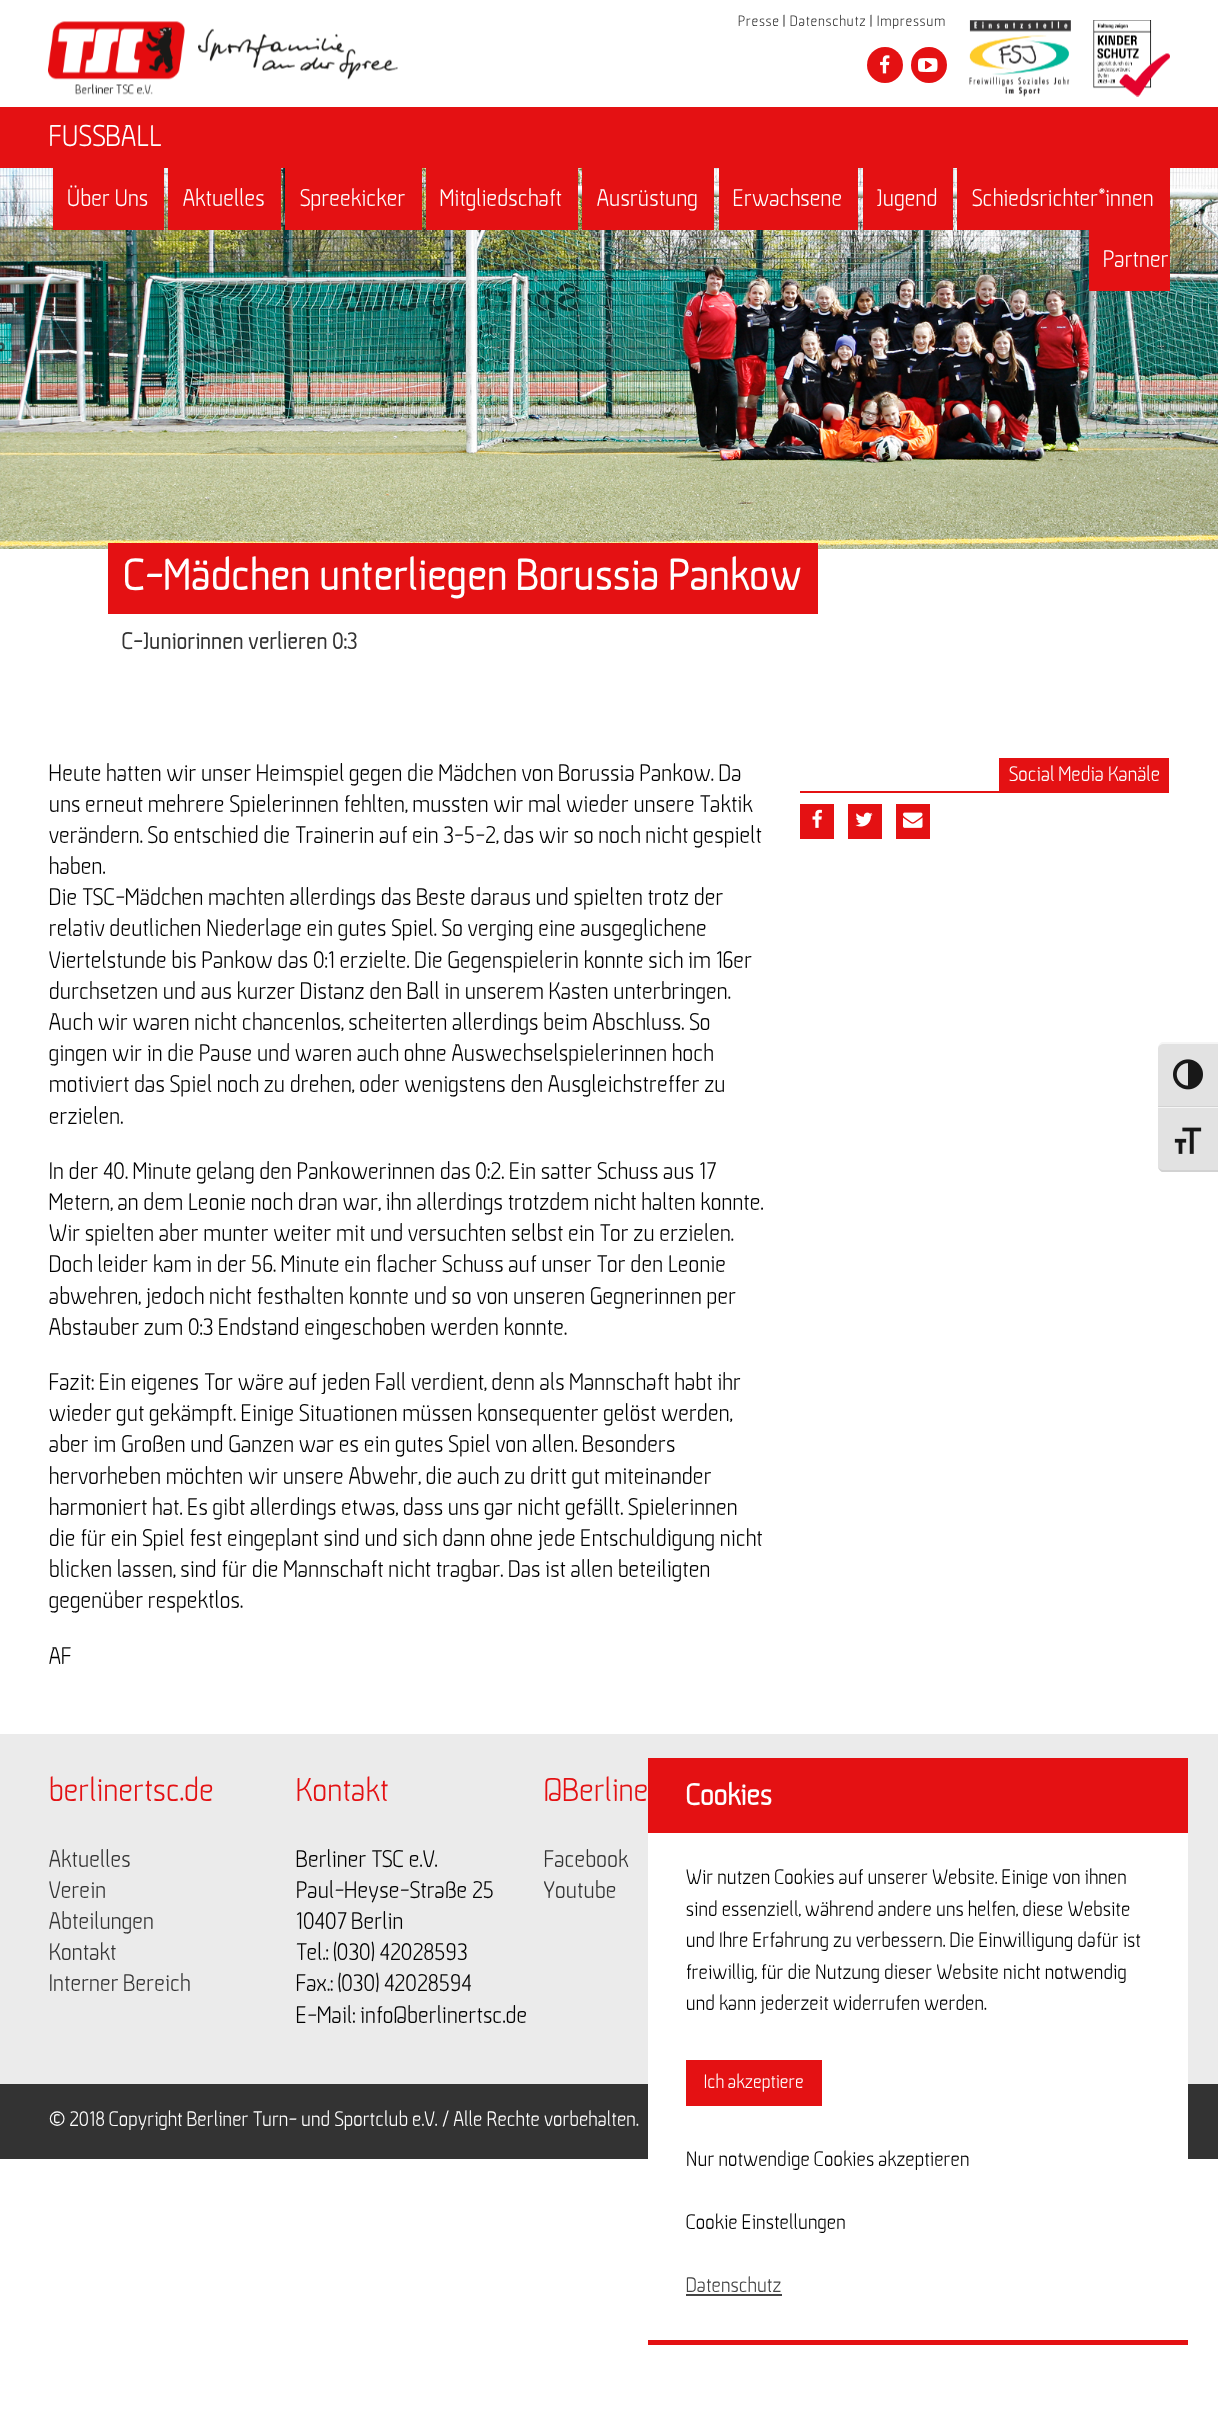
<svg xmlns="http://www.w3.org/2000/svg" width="1218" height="2423">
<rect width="100%" height="100%" fill="#fff"/>
<image x="48" y="21" width="350" height="74" href="media/1.png"/>
<text x="738" y="26" style="font-family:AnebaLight;font-size:15px;font-weight:300;letter-spacing:0.75px;fill:#333">Presse</text>
<text x="783" y="26" style="font-family:AnebaLight;font-size:15px;font-weight:300;fill:#000">|</text>
<text x="790" y="26" style="font-family:AnebaLight;font-size:15px;font-weight:300;letter-spacing:0.75px;fill:#333">Datenschutz</text>
<text x="870" y="26" style="font-family:AnebaLight;font-size:15px;font-weight:300;fill:#000">|</text>
<text x="877" y="26" style="font-family:AnebaLight;font-size:15px;font-weight:300;letter-spacing:0.75px;fill:#333">Impressum</text>
<circle cx="885" cy="65" r="18" fill="#e41113"/>
<image x="880" y="55" width="10" height="19" href="media/2.png"/>
<circle cx="929" cy="65" r="18" fill="#e41113"/>
<image x="918" y="58" width="20" height="14" href="media/3.png"/>
<image x="969" y="20" width="102" height="77" href="media/4.png"/>
<image x="1093" y="20" width="77" height="77" href="media/5.png"/>
<rect y="107" width="1218" height="61" fill="#e41113"/>
<text x="49" y="146" style="font-family:AnebaLight;font-size:30px;font-weight:300;fill:#fff">FUSSBALL</text>
<image x="0" y="168" width="1218" height="381" href="media/6.png"/>
<rect x="53" y="168" width="111" height="62" fill="#e41113"/>
<text x="67" y="206" style="font-family:AnebaLight;font-size:24px;font-weight:300;fill:#fff">Über Uns</text>
<rect x="168" y="168" width="113" height="62" fill="#e41113"/>
<text x="183" y="206" style="font-family:AnebaLight;font-size:24px;font-weight:300;fill:#fff">Aktuelles</text>
<rect x="285" y="168" width="137" height="62" fill="#e41113"/>
<text x="300" y="206" style="font-family:AnebaLight;font-size:24px;font-weight:300;fill:#fff">Spreekicker</text>
<rect x="426" y="168" width="152" height="62" fill="#e41113"/>
<text x="440" y="206" style="font-family:AnebaLight;font-size:24px;font-weight:300;fill:#fff">Mitgliedschaft</text>
<rect x="582" y="168" width="132" height="62" fill="#e41113"/>
<text x="597" y="206" style="font-family:AnebaLight;font-size:24px;font-weight:300;fill:#fff">Ausrüstung</text>
<rect x="719" y="168" width="139" height="62" fill="#e41113"/>
<text x="733" y="206" style="font-family:AnebaLight;font-size:24px;font-weight:300;fill:#fff">Erwachsene</text>
<rect x="863" y="168" width="90" height="62" fill="#e41113"/>
<text x="877" y="206" style="font-family:AnebaLight;font-size:24px;font-weight:300;fill:#fff">Jugend</text>
<rect x="957" y="168" width="213" height="62" fill="#e41113"/>
<text x="972" y="206" style="font-family:AnebaLight;font-size:24px;font-weight:300;fill:#fff">Schiedsrichter*innen</text>
<rect x="1089" y="230" width="81" height="61" fill="#e41113"/>
<text x="1103" y="267" style="font-family:AnebaLight;font-size:24px;font-weight:300;fill:#fff">Partner</text>
<rect x="108" y="543" width="710" height="71" fill="#e41113"/>
<text x="124" y="590" style="font-family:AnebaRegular;font-size:45px;fill:#fff">C-Mädchen unterliegen Borussia Pankow</text>
<text x="122" y="649" style="font-family:AnebaRegular;font-size:24px;fill:#333">C-Juniorinnen verlieren 0:3</text>
<text x="49" y="781" style="font-family:AnebaLight;font-size:24px;font-weight:300;fill:#000">Heute hatten wir unser Heimspiel gegen die Mädchen von Borussia Pankow. Da</text>
<text x="49" y="812" style="font-family:AnebaLight;font-size:24px;font-weight:300;fill:#000">uns erneut mehrere Spielerinnen fehlten, mussten wir mal wieder unsere Taktik</text>
<text x="49" y="843" style="font-family:AnebaLight;font-size:24px;font-weight:300;fill:#000">verändern. So entschied die Trainerin auf ein 3-5-2, das wir so noch nicht gespielt</text>
<text x="49" y="874" style="font-family:AnebaLight;font-size:24px;font-weight:300;fill:#000">haben.</text>
<text x="49" y="905" style="font-family:AnebaLight;font-size:24px;font-weight:300;fill:#000">Die TSC-Mädchen machten allerdings das Beste daraus und spielten trotz der</text>
<text x="49" y="936" style="font-family:AnebaLight;font-size:24px;font-weight:300;fill:#000">relativ deutlichen Niederlage ein gutes Spiel. So verging eine ausgeglichene</text>
<text x="49" y="968" style="font-family:AnebaLight;font-size:24px;font-weight:300;fill:#000">Viertelstunde bis Pankow das 0:1 erzielte. Die Gegenspielerin konnte sich im 16er</text>
<text x="49" y="999" style="font-family:AnebaLight;font-size:24px;font-weight:300;fill:#000">durchsetzen und aus kurzer Distanz den Ball in unserem Kasten unterbringen.</text>
<text x="49" y="1030" style="font-family:AnebaLight;font-size:24px;font-weight:300;fill:#000">Auch wir waren nicht chancenlos, scheiterten allerdings beim Abschluss. So</text>
<text x="49" y="1061" style="font-family:AnebaLight;font-size:24px;font-weight:300;fill:#000">gingen wir in die Pause und waren auch ohne Auswechselspielerinnen hoch</text>
<text x="49" y="1092" style="font-family:AnebaLight;font-size:24px;font-weight:300;fill:#000">motiviert das Spiel noch zu drehen, oder wenigstens den Ausgleichstreffer zu</text>
<text x="49" y="1124" style="font-family:AnebaLight;font-size:24px;font-weight:300;fill:#000">erzielen.</text>
<text x="49" y="1179" style="font-family:AnebaLight;font-size:24px;font-weight:300;fill:#000">In der 40. Minute gelang den Pankowerinnen das 0:2. Ein satter Schuss aus 17</text>
<text x="49" y="1210" style="font-family:AnebaLight;font-size:24px;font-weight:300;fill:#000">Metern, an dem Leonie noch dran war, ihn allerdings trotzdem nicht halten konnte.</text>
<text x="49" y="1241" style="font-family:AnebaLight;font-size:24px;font-weight:300;fill:#000">Wir spielten aber munter weiter mit und versuchten selbst ein Tor zu erzielen.</text>
<text x="49" y="1272" style="font-family:AnebaLight;font-size:24px;font-weight:300;fill:#000">Doch leider kam in der 56. Minute ein flacher Schuss auf unser Tor den Leonie</text>
<text x="49" y="1304" style="font-family:AnebaLight;font-size:24px;font-weight:300;fill:#000">abwehren, jedoch nicht festhalten konnte und so von unseren Gegnerinnen per</text>
<text x="49" y="1335" style="font-family:AnebaLight;font-size:24px;font-weight:300;fill:#000">Abstauber zum 0:3 Endstand eingeschoben werden konnte.</text>
<text x="49" y="1390" style="font-family:AnebaLight;font-size:24px;font-weight:300;fill:#000">Fazit: Ein eigenes Tor wäre auf jeden Fall verdient, denn als Mannschaft habt ihr</text>
<text x="49" y="1421" style="font-family:AnebaLight;font-size:24px;font-weight:300;fill:#000">wieder gut gekämpft. Einige Situationen müssen konsequenter gelöst werden,</text>
<text x="49" y="1452" style="font-family:AnebaLight;font-size:24px;font-weight:300;fill:#000">aber im Großen und Ganzen war es ein gutes Spiel von allen. Besonders</text>
<text x="49" y="1484" style="font-family:AnebaLight;font-size:24px;font-weight:300;fill:#000">hervorheben möchten wir unsere Abwehr, die auch zu dritt gut miteinander</text>
<text x="49" y="1515" style="font-family:AnebaLight;font-size:24px;font-weight:300;fill:#000">harmoniert hat. Es gibt allerdings etwas, dass uns gar nicht gefällt. Spielerinnen</text>
<text x="49" y="1546" style="font-family:AnebaLight;font-size:24px;font-weight:300;fill:#000">die für ein Spiel fest eingeplant sind und sich dann ohne jede Entschuldigung nicht</text>
<text x="49" y="1577" style="font-family:AnebaLight;font-size:24px;font-weight:300;fill:#000">blicken lassen, sind für die Mannschaft nicht tragbar. Das ist allen beteiligten</text>
<text x="49" y="1608" style="font-family:AnebaLight;font-size:24px;font-weight:300;fill:#000">gegenüber respektlos.</text>
<text x="49" y="1664" style="font-family:AnebaLight;font-size:24px;font-weight:300;fill:#000">AF</text>
<rect x="800" y="791" width="369" height="2" fill="#e41113"/>
<rect x="999" y="758" width="170" height="33" fill="#e41113"/>
<text x="1009" y="781" style="font-family:AnebaLight;font-size:21px;font-weight:300;fill:#fff">Social Media Kanäle</text>
<rect x="800" y="804" width="34" height="35" fill="#e41113"/>
<image x="812" y="809" width="10" height="19" href="media/7.png"/>
<rect x="848" y="804" width="34" height="35" fill="#e41113"/>
<image x="855" y="812" width="18" height="15" href="media/8.png"/>
<rect x="896" y="804" width="34" height="35" fill="#e41113"/>
<image x="903" y="812" width="20" height="16" href="media/9.png"/>
<path d="M1164 1043h54v64h-60v-58c0-3.5 2.5-6 6-6z" fill="#e2e2e2"/>
<path d="M1164 1044c-3 0-6 2-6 4c0-2 2-5 4-6h56v2z" fill="#f5f5f5"/>
<rect x="1158" y="1106" width="60" height="1" fill="#d2d2d2"/>
<image x="1173" y="1059" width="30" height="31" href="media/10.png"/>
<path d="M1158 1107h60v65h-54c-3.5 0-6-2.5-6-6z" fill="#e2e2e2"/>
<rect x="1158" y="1107" width="60" height="1" fill="#f5f5f5"/>
<path d="M1218 1172h-56c-2-1-4-4-4-6c0 2 3 4 6 4h54z" fill="#d2d2d2"/>
<image x="1174" y="1127" width="28" height="27" href="media/11.png"/>
<rect y="1734" width="1218" height="350" fill="#ebebeb"/>
<text x="49" y="1801" style="font-family:AnebaLight;font-size:33px;font-weight:300;fill:#e41113">berlinertsc.de</text>
<text x="49" y="1867" style="font-family:AnebaLight;font-size:24px;font-weight:300;fill:#333">Aktuelles</text>
<text x="49" y="1898" style="font-family:AnebaLight;font-size:24px;font-weight:300;fill:#333">Verein</text>
<text x="49" y="1929" style="font-family:AnebaLight;font-size:24px;font-weight:300;fill:#333">Abteilungen</text>
<text x="49" y="1960" style="font-family:AnebaLight;font-size:24px;font-weight:300;fill:#333">Kontakt</text>
<text x="49" y="1991" style="font-family:AnebaLight;font-size:24px;font-weight:300;fill:#333">Interner Bereich</text>
<text x="296" y="1801" style="font-family:AnebaLight;font-size:33px;font-weight:300;fill:#e41113">Kontakt</text>
<text x="296" y="1867" style="font-family:AnebaLight;font-size:24px;font-weight:300;fill:#000">Berliner TSC e.V.</text>
<text x="296" y="1898" style="font-family:AnebaLight;font-size:24px;font-weight:300;fill:#000">Paul-Heyse-Straße 25</text>
<text x="296" y="1929" style="font-family:AnebaLight;font-size:24px;font-weight:300;fill:#000">10407 Berlin</text>
<text x="296" y="1960" style="font-family:AnebaLight;font-size:24px;font-weight:300;fill:#000">Tel.: (030) 42028593</text>
<text x="296" y="1991" style="font-family:AnebaLight;font-size:24px;font-weight:300;fill:#000">Fax.: (030) 42028594</text>
<text x="296" y="2023" style="font-family:AnebaLight;font-size:24px;font-weight:300;fill:#000">E-Mail: info@berlinertsc.de</text>
<text x="544" y="1801" style="font-family:AnebaLight;font-size:33px;font-weight:300;fill:#e41113">@Berline</text>
<text x="544" y="1867" style="font-family:AnebaLight;font-size:24px;font-weight:300;fill:#333">Facebook</text>
<text x="544" y="1898" style="font-family:AnebaLight;font-size:24px;font-weight:300;fill:#333">Youtube</text>
<rect y="2084" width="1218" height="75" fill="#333"/>
<rect x="648" y="1833" width="540" height="326" fill="#fff"/>
<rect x="648" y="2340" width="540" height="5" fill="#e41113"/>
<rect x="648" y="1758" width="540" height="75" fill="#e41113"/>
<text x="686" y="1805" style="font-family:AnebaLight;font-size:30px;font-weight:bold;fill:#fff">Cookies</text>
<text x="686" y="1884" style="font-family:AnebaLight;font-size:21px;font-weight:300;fill:#000">Wir nutzen Cookies auf unserer Website. Einige von ihnen</text>
<text x="686" y="1916" style="font-family:AnebaLight;font-size:21px;font-weight:300;fill:#000">sind essenziell, während andere uns helfen, diese Website</text>
<text x="686" y="1947" style="font-family:AnebaLight;font-size:21px;font-weight:300;fill:#000">und Ihre Erfahrung zu verbessern. Die Einwilligung dafür ist</text>
<text x="686" y="1979" style="font-family:AnebaLight;font-size:21px;font-weight:300;fill:#000">freiwillig, für die Nutzung dieser Website nicht notwendig</text>
<text x="686" y="2010" style="font-family:AnebaLight;font-size:21px;font-weight:300;fill:#000">und kann jederzeit widerrufen werden.</text>
<rect x="686" y="2060" width="136" height="46" fill="#e41113"/>
<text x="704" y="2088" style="font-family:AnebaLight;font-size:19.5px;font-weight:300;fill:#fff">Ich akzeptiere</text>
<text x="686" y="2166" style="font-family:AnebaLight;font-size:21px;font-weight:300;fill:#000">Nur notwendige Cookies akzeptieren</text>
<text x="686" y="2229" style="font-family:AnebaLight;font-size:21px;font-weight:300;fill:#000">Cookie Einstellungen</text>
<text x="686" y="2292" style="font-family:AnebaLight;font-size:21px;font-weight:300;fill:#444">Datenschutz</text>
<rect x="686" y="2294" width="96" height="2" fill="#444"/>
<text x="49" y="2126" style="font-family:AnebaLight;font-size:21px;font-weight:300;fill:#fff">© 2018 Copyright Berliner Turn- und Sportclub e.V. / Alle Rechte vorbehalten.</text>
</svg>
